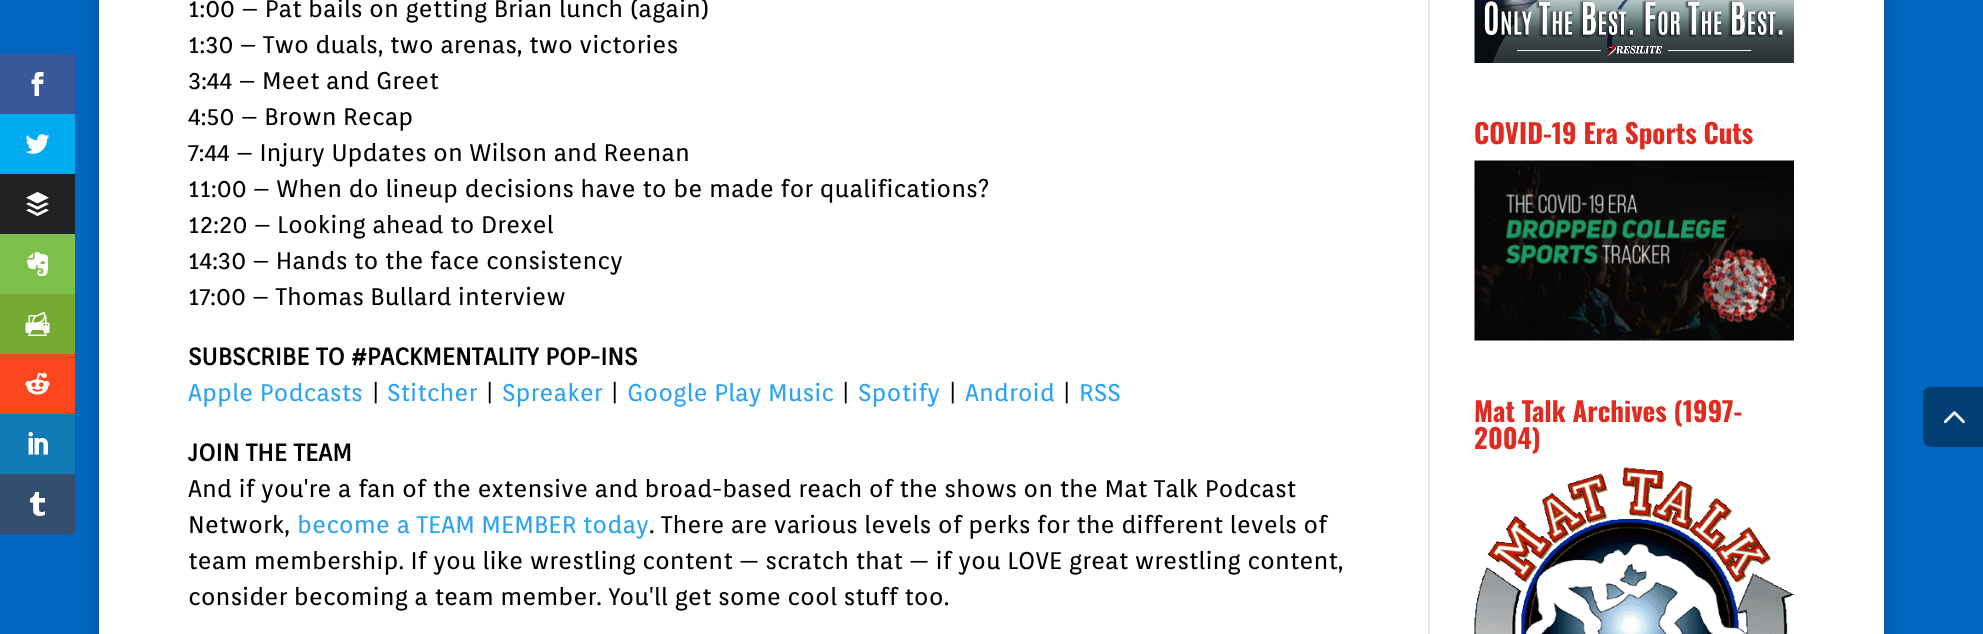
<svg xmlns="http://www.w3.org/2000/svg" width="1983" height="634">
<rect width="100%" height="100%" fill="#0066bf"/>
<rect y="54" width="75" height="60" fill="#3a579a"/>
<image x="31" y="72" width="13" height="24" href="media/1.png"/>
<rect y="114" width="75" height="60" fill="#00abf0"/>
<image x="25" y="134" width="25" height="20" href="media/2.png"/>
<rect y="174" width="75" height="60" fill="#222"/>
<image x="26" y="192" width="23" height="24" href="media/3.png"/>
<rect y="234" width="75" height="60" fill="#7cbf4b"/>
<image x="27" y="252" width="21" height="24" href="media/4.png"/>
<rect y="294" width="75" height="60" fill="#75aa33"/>
<image x="25" y="312" width="25" height="24" href="media/5.png"/>
<rect y="354" width="75" height="60" fill="#fc461e"/>
<image x="25" y="372" width="25" height="23" href="media/6.png"/>
<rect y="414" width="75" height="60" fill="#127bb6"/>
<image x="28" y="432" width="20" height="23" href="media/7.png"/>
<rect y="474" width="75" height="60" fill="#32506d"/>
<image x="30" y="492" width="15" height="24" href="media/8.png"/>
<rect x="99" y="-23" width="1785" height="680" fill="#00000033" filter="blur(7.5px)"/>
<rect x="99" width="1785" height="634" fill="#fff"/>
<text x="188" y="17" style="font-family:Orienta;font-size:24px;fill:#000">1:00 – Pat bails on getting Brian lunch (again)</text>
<text x="188" y="53" style="font-family:Orienta;font-size:24px;fill:#000">1:30 – Two duals, two arenas, two victories</text>
<text x="188" y="89" style="font-family:Orienta;font-size:24px;fill:#000">3:44 – Meet and Greet</text>
<text x="188" y="125" style="font-family:Orienta;font-size:24px;fill:#000">4:50 – Brown Recap</text>
<text x="188" y="161" style="font-family:Orienta;font-size:24px;fill:#000">7:44 – Injury Updates on Wilson and Reenan</text>
<text x="188" y="197" style="font-family:Orienta;font-size:24px;fill:#000">11:00 – When do lineup decisions have to be made for qualifications?</text>
<text x="188" y="233" style="font-family:Orienta;font-size:24px;fill:#000">12:20 – Looking ahead to Drexel</text>
<text x="188" y="269" style="font-family:Orienta;font-size:24px;fill:#000">14:30 – Hands to the face consistency</text>
<text x="188" y="305" style="font-family:Orienta;font-size:24px;fill:#000">17:00 – Thomas Bullard interview</text>
<text x="188" y="365" style="font-family:Orienta;font-size:24px;font-weight:bold;fill:#000">SUBSCRIBE TO #PACKMENTALITY POP-INS</text>
<text x="188" y="401" style="font-family:Orienta;font-size:24px;fill:#2ea3f2">Apple Podcasts</text>
<text x="370" y="401" style="font-family:Orienta;font-size:24px;fill:#000">|</text>
<text x="387" y="401" style="font-family:Orienta;font-size:24px;fill:#2ea3f2">Stitcher</text>
<text x="484" y="401" style="font-family:Orienta;font-size:24px;fill:#000">|</text>
<text x="502" y="401" style="font-family:Orienta;font-size:24px;fill:#2ea3f2">Spreaker</text>
<text x="609" y="401" style="font-family:Orienta;font-size:24px;fill:#000">|</text>
<text x="627" y="401" style="font-family:Orienta;font-size:24px;fill:#2ea3f2">Google Play Music</text>
<text x="840" y="401" style="font-family:Orienta;font-size:24px;fill:#000">|</text>
<text x="858" y="401" style="font-family:Orienta;font-size:24px;fill:#2ea3f2">Spotify</text>
<text x="947" y="401" style="font-family:Orienta;font-size:24px;fill:#000">|</text>
<text x="965" y="401" style="font-family:Orienta;font-size:24px;fill:#2ea3f2">Android</text>
<text x="1061" y="401" style="font-family:Orienta;font-size:24px;fill:#000">|</text>
<text x="1079" y="401" style="font-family:Orienta;font-size:24px;fill:#2ea3f2">RSS</text>
<text x="188" y="461" style="font-family:Orienta;font-size:24px;font-weight:bold;fill:#000">JOIN THE TEAM</text>
<text x="188" y="497" style="font-family:Orienta;font-size:24px;fill:#000">And if you're a fan of the extensive and broad-based reach of the shows on the Mat Talk Podcast</text>
<text x="188" y="533" style="font-family:Orienta;font-size:24px;fill:#000">Network,</text>
<text x="297" y="533" style="font-family:Orienta;font-size:24px;fill:#2ea3f2">become a TEAM MEMBER today</text>
<text x="649" y="533" style="font-family:Orienta;font-size:24px;fill:#000">. There are various levels of perks for the different levels of</text>
<text x="188" y="569" style="font-family:Orienta;font-size:24px;fill:#000">team membership. If you like wrestling content — scratch that — if you LOVE great wrestling content,</text>
<text x="188" y="605" style="font-family:Orienta;font-size:24px;fill:#000">consider becoming a team member. You'll get some cool stuff too.</text>
<image x="1474" y="0" width="320" height="63" href="media/9.png"/>
<text x="1474" y="144" style="font-family:Oswald;font-size:27px;font-weight:bold;fill:#e02b20">COVID-19 Era Sports Cuts</text>
<image x="1474" y="160" width="320" height="181" href="media/10.png"/>
<text x="1474" y="422" style="font-family:Oswald;font-size:27px;font-weight:bold;fill:#e02b20">Mat Talk Archives (1997-</text>
<text x="1474" y="449" style="font-family:Oswald;font-size:27px;font-weight:bold;fill:#e02b20">2004)</text>
<image x="1474" y="467" width="320" height="167" href="media/11.png"/>
<rect x="1428" width="2" height="634" fill="#e2e2e2"/>
<path d="M1931 387h52v60h-52c-4.5 0-8-3.5-8-8v-44c0-4.5 3.5-8 8-8z" fill="#003d73"/>
<image x="1943" y="411" width="22" height="13" href="media/12.png"/>
</svg>
